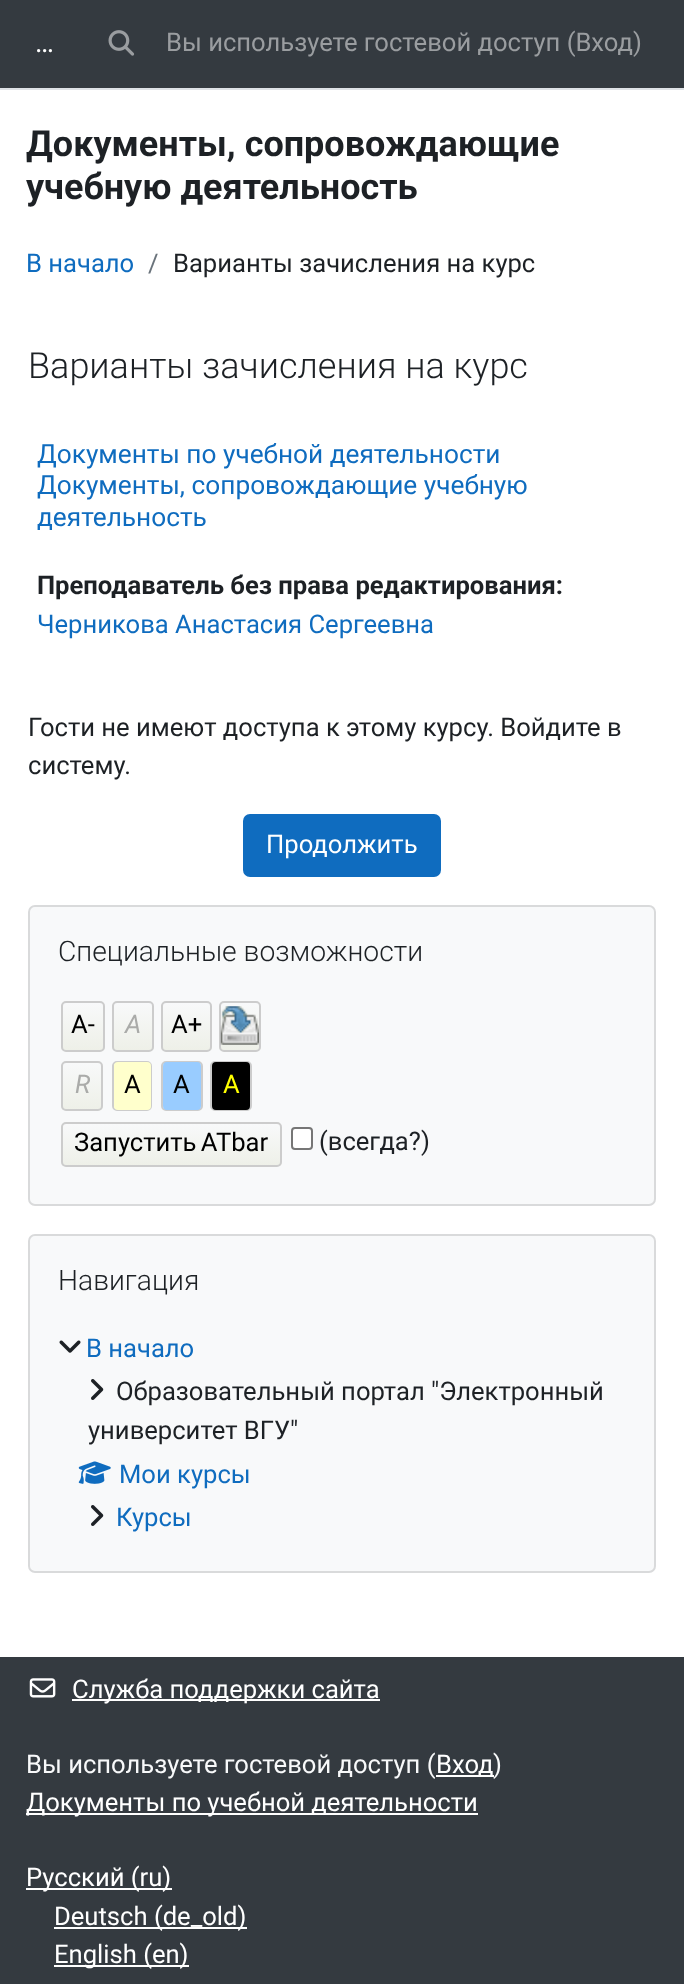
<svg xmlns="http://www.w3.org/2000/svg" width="684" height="1984">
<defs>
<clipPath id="clip1"><rect x="61" y="1001" width="44" height="51" rx="5"/></clipPath>
<linearGradient id="g1" gradientUnits="userSpaceOnUse" x1="83" y1="1003" x2="83" y2="1050"><stop offset="0" stop-color="#f8f9fa"/><stop offset="1" stop-color="#eef0e8"/></linearGradient>
<clipPath id="clip2"><rect x="112" y="1001" width="42" height="51" rx="5"/></clipPath>
<linearGradient id="g2" gradientUnits="userSpaceOnUse" x1="133" y1="1003" x2="133" y2="1050"><stop offset="0" stop-color="#f8f9fa"/><stop offset="1" stop-color="#eef0e8"/></linearGradient>
<clipPath id="clip3"><rect x="161" y="1001" width="51" height="51" rx="5"/></clipPath>
<linearGradient id="g3" gradientUnits="userSpaceOnUse" x1="186" y1="1003" x2="186" y2="1050"><stop offset="0" stop-color="#f8f9fa"/><stop offset="1" stop-color="#eef0e8"/></linearGradient>
<clipPath id="clip4"><rect x="219" y="1001" width="42" height="51" rx="5"/></clipPath>
<linearGradient id="g4" gradientUnits="userSpaceOnUse" x1="240" y1="1003" x2="240" y2="1050"><stop offset="0" stop-color="#f8f9fa"/><stop offset="1" stop-color="#eef0e8"/></linearGradient>
<clipPath id="clip5"><rect x="61" y="1061" width="42" height="50" rx="5"/></clipPath>
<linearGradient id="g5" gradientUnits="userSpaceOnUse" x1="82" y1="1062" x2="82" y2="1110"><stop offset="0" stop-color="#f8f9fa"/><stop offset="1" stop-color="#eef0e8"/></linearGradient>
<clipPath id="clip6"><rect x="61" y="1122" width="221" height="45" rx="5"/></clipPath>
<linearGradient id="g6" gradientUnits="userSpaceOnUse" x1="172" y1="1124" x2="172" y2="1166"><stop offset="0" stop-color="#f8f9fa"/><stop offset="1" stop-color="#eef0e8"/></linearGradient>
</defs>
<rect width="100%" height="100%" fill="#fff"/>
<rect width="684" height="88" fill="#343a40"/>
<rect y="88" width="684" height="2" fill="#dee2e6"/>
<text x="35" y="52" style="font-family:Roboto;font-size:28.25px;fill:#fff">…</text>
<image x="108" y="30" width="27" height="26" href="media/1.png"/>
<text x="166" y="51" style="font-family:Roboto;font-size:25.6px;fill:#9a9da0">Вы используете гостевой доступ (Вход</text>
<text x="633" y="51" style="font-family:Roboto;font-size:25.6px;fill:#9a9da0">)</text>
<text x="26" y="156" style="font-family:Roboto;font-size:36px;font-weight:bold;fill:#1d2125">Документы, сопровождающие</text>
<text x="26" y="199" style="font-family:Roboto;font-size:36px;font-weight:bold;fill:#1d2125">учебную деятельность</text>
<text x="26" y="272" style="font-family:Roboto;font-size:25.6px;fill:#0f6cbf">В начало</text>
<text x="148" y="272" style="font-family:Roboto;font-size:25.6px;fill:#6a737b">/</text>
<text x="173" y="272" style="font-family:Roboto;font-size:25.6px;fill:#1d2125">Варианты зачисления на курс</text>
<text x="28" y="378" style="font-family:Roboto;font-size:36px;font-weight:300;fill:#1d2125">Варианты зачисления на курс</text>
<text x="37" y="463" style="font-family:Roboto;font-size:26.25px;fill:#0f6cbf">Документы по учебной деятельности</text>
<text x="37" y="494" style="font-family:Roboto;font-size:26.25px;fill:#0f6cbf">Документы, сопровождающие учебную</text>
<text x="37" y="526" style="font-family:Roboto;font-size:26.25px;fill:#0f6cbf">деятельность</text>
<text x="37" y="594" style="font-family:Roboto;font-size:25.6px;font-weight:bold;fill:#1d2125">Преподаватель без права редактирования:</text>
<text x="37" y="633" style="font-family:Roboto;font-size:25.6px;fill:#0f6cbf">Черникова Анастасия Сергеевна</text>
<text x="28" y="736" style="font-family:Roboto;font-size:25.6px;fill:#1d2125">Гости не имеют доступа к этому курсу. Войдите в</text>
<text x="28" y="774" style="font-family:Roboto;font-size:25.6px;fill:#1d2125">систему.</text>
<rect x="244" y="815" width="196" height="61" rx="6" fill="#0f6cbf" stroke="#0f6cbf" stroke-width="2"/>
<text x="266" y="853" style="font-family:Roboto;font-size:25.6px;fill:#fff">Продолжить</text>
<rect x="28" y="905" width="628" height="301" rx="7" fill="#f8f9fa"/>
<rect x="29" y="906" width="626" height="299" rx="6" fill="none" stroke="#0000001f" stroke-width="2"/>
<text x="58" y="961" style="font-family:Roboto;font-size:28.25px;font-weight:300;fill:#1d2125">Специальные возможности</text>
<g clip-path="url(#clip1)">
<rect x="61" y="1003" width="44" height="47" fill="url(#g1)"/>
</g>
<rect x="62" y="1002" width="42" height="49" rx="4" fill="none" stroke="#ccc" stroke-width="2"/>
<text x="71" y="1033" style="font-family:Roboto;font-size:25.6px;fill:#000">А-</text>
<g clip-path="url(#clip2)">
<rect x="112" y="1003" width="42" height="47" fill="url(#g2)"/>
</g>
<rect x="113" y="1002" width="40" height="49" rx="4" fill="none" stroke="#ccc" stroke-width="2"/>
<text x="125" y="1033" style="font-family:Roboto;font-size:25.6px;font-style:italic;fill:#aaaba9">А</text>
<g clip-path="url(#clip3)">
<rect x="161" y="1003" width="51" height="47" fill="url(#g3)"/>
</g>
<rect x="162" y="1002" width="49" height="49" rx="4" fill="none" stroke="#ccc" stroke-width="2"/>
<text x="171" y="1033" style="font-family:Roboto;font-size:25.6px;fill:#000">А+</text>
<g clip-path="url(#clip4)">
<rect x="219" y="1003" width="42" height="47" fill="url(#g4)"/>
</g>
<rect x="220" y="1002" width="40" height="49" rx="4" fill="none" stroke="#ccc" stroke-width="2"/>
<image x="220" y="1006" width="39" height="39" href="media/2.png"/>
<g clip-path="url(#clip5)">
<rect x="61" y="1062" width="42" height="48" fill="url(#g5)"/>
</g>
<rect x="62" y="1062" width="40" height="48" rx="4" fill="none" stroke="#ccc" stroke-width="2"/>
<text x="75" y="1093" style="font-family:Roboto;font-size:25.6px;font-style:italic;fill:#aaaba9">R</text>
<rect x="113" y="1062" width="38" height="48" rx="4" fill="none" stroke="#ccc" stroke-width="2"/>
<rect x="114" y="1062" width="37" height="48" rx="4" fill="#ffc"/>
<text x="124" y="1093" style="font-family:Roboto;font-size:25.6px;fill:#000">А</text>
<rect x="162" y="1062" width="40" height="48" rx="4" fill="none" stroke="#ccc" stroke-width="2"/>
<rect x="163" y="1062" width="38" height="48" rx="4" fill="#9cf"/>
<text x="173" y="1093" style="font-family:Roboto;font-size:25.6px;fill:#000">А</text>
<rect x="211" y="1062" width="40" height="48" rx="4" fill="none" stroke="#ccc" stroke-width="2"/>
<rect x="212" y="1062" width="38" height="48" rx="4" fill="#000"/>
<text x="223" y="1093" style="font-family:Roboto;font-size:25.6px;fill:#ff0">А</text>
<g clip-path="url(#clip6)">
<rect x="61" y="1124" width="221" height="42" fill="url(#g6)"/>
</g>
<rect x="62" y="1123" width="219" height="43" rx="4" fill="none" stroke="#ccc" stroke-width="2"/>
<text x="74" y="1151" word-spacing="-2" style="font-family:Roboto;font-size:25.6px;fill:#000">Запустить ATbar</text>
<rect x="292" y="1128" width="20" height="21" rx="3" fill="#fff" stroke="#767676" stroke-width="2"/>
<text x="319" y="1150" style="font-family:Roboto;font-size:25.6px;fill:#1d2125">(всегда?)</text>
<rect x="28" y="1234" width="628" height="339" rx="7" fill="#f8f9fa"/>
<rect x="29" y="1235" width="626" height="337" rx="6" fill="none" stroke="#0000001f" stroke-width="2"/>
<text x="58" y="1290" style="font-family:Roboto;font-size:28.25px;font-weight:300;fill:#1d2125">Навигация</text>
<image x="59" y="1340" width="22" height="13" href="media/3.png"/>
<text x="86" y="1357" style="font-family:Roboto;font-size:25.6px;fill:#0f6cbf">В начало</text>
<image x="91" y="1379" width="13" height="21" href="media/4.png"/>
<text x="116" y="1400" style="font-family:Roboto;font-size:25.6px;fill:#1d2125">Образовательный портал "Электронный</text>
<text x="88" y="1439" style="font-family:Roboto;font-size:25.6px;fill:#1d2125">университет ВГУ"</text>
<image x="78" y="1461" width="33" height="23" href="media/5.png"/>
<text x="119" y="1483" style="font-family:Roboto;font-size:25.6px;fill:#0f6cbf">Мои курсы</text>
<image x="91" y="1505" width="13" height="21" href="media/4.png"/>
<text x="116" y="1526" style="font-family:Roboto;font-size:25.6px;fill:#0f6cbf">Курсы</text>
<rect y="1657" width="684" height="327" fill="#343a40"/>
<image x="29" y="1678" width="27" height="20" href="media/6.png"/>
<rect x="72" y="1699" width="308" height="2" fill="#fff"/>
<text x="72" y="1698" style="font-family:Roboto;font-size:25.6px;fill:#fff">Служба поддержки сайта</text>
<text x="26" y="1773" style="font-family:Roboto;font-size:25.6px;fill:#f8f9fa">Вы используете гостевой доступ (</text>
<rect x="436" y="1775" width="58" height="2" fill="#fff"/>
<text x="436" y="1773" style="font-family:Roboto;font-size:25.6px;fill:#fff">Вход</text>
<text x="493" y="1773" style="font-family:Roboto;font-size:25.6px;fill:#f8f9fa">)</text>
<rect x="26" y="1813" width="452" height="2" fill="#fff"/>
<text x="26" y="1811" style="font-family:Roboto;font-size:25.6px;fill:#fff">Документы по учебной деятельности</text>
<rect x="26" y="1888" width="146" height="2" fill="#fff"/>
<text x="26" y="1886" style="font-family:Roboto;font-size:25.6px;fill:#fff">Русский (ru)</text>
<rect x="54" y="1927" width="193" height="2" fill="#fff"/>
<text x="54" y="1925" style="font-family:Roboto;font-size:25.6px;fill:#fff">Deutsch (de_old)</text>
<rect x="54" y="1965" width="135" height="2" fill="#fff"/>
<text x="54" y="1963" style="font-family:Roboto;font-size:25.6px;fill:#fff">English (en)</text>
</svg>
